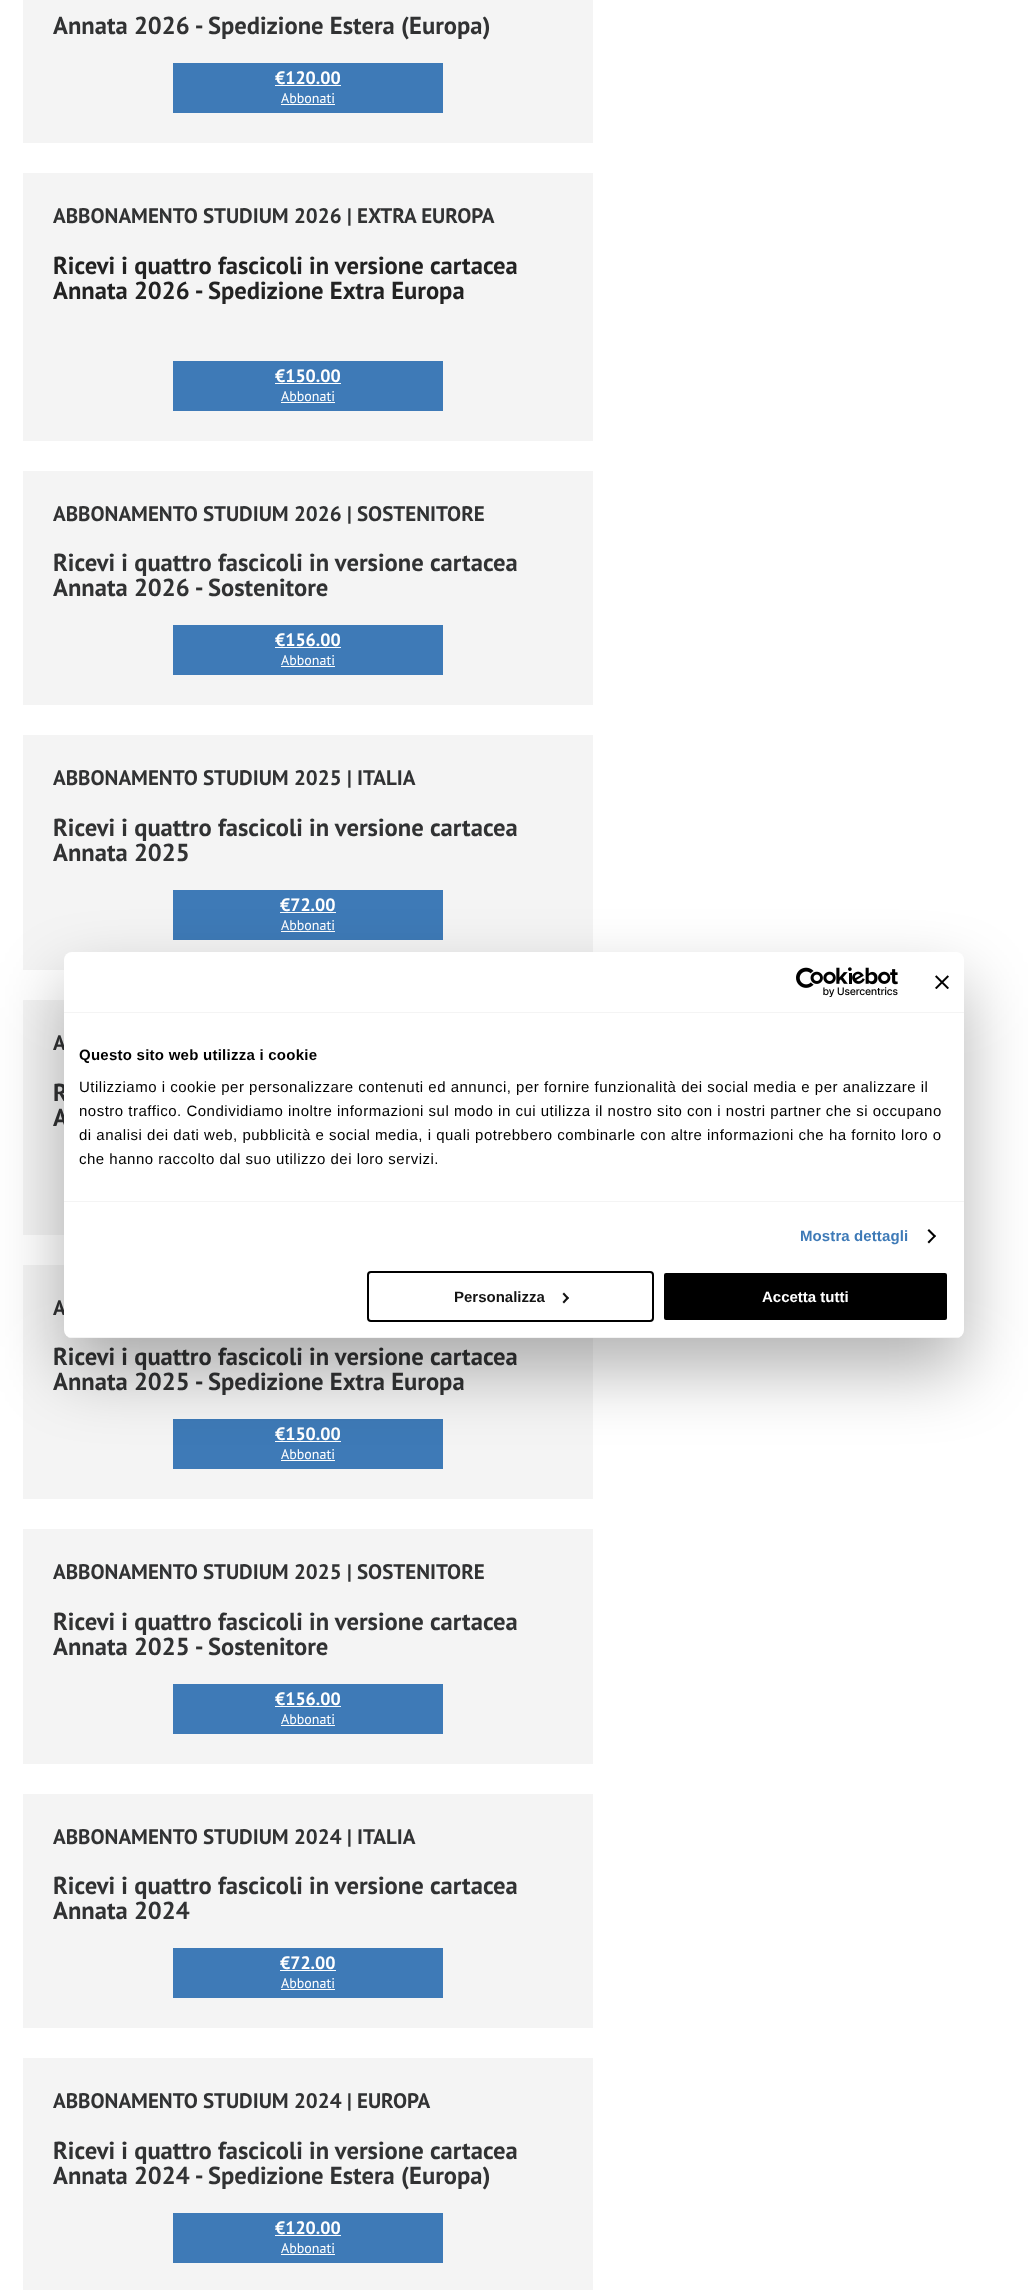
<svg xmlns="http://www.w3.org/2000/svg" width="1028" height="2290">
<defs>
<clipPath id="clip1"><rect x="64" y="952" width="900" height="386" rx="8"/></clipPath>
</defs>
<rect width="100%" height="100%" fill="#fff"/>
<rect x="23" width="570" height="143" fill="#f4f4f4"/>
<text x="53" y="34" style="font-family:PT Sans;font-size:24.6px;font-weight:bold;fill:#313233">Annata 2026 - Spedizione Estera (Europa)</text>
<rect x="173" y="63" width="270" height="50" fill="#3e7ab7"/>
<text x="275" y="84" style="font-family:PT Sans;font-size:18px;font-weight:bold;fill:#fff">€120.00</text>
<rect x="275" y="85" width="66" height="1" fill="#fff"/>
<text x="281" y="103" style="font-family:PT Sans;font-size:14px;fill:#fff">Abbonati</text>
<rect x="281" y="104" width="54" height="1" fill="#fff"/>
<rect x="23" y="173" width="570" height="268" fill="#f4f4f4"/>
<text x="53" y="223" style="font-family:PT Sans;font-size:21px;font-weight:bold;fill:#313233">ABBONAMENTO STUDIUM 2026 | EXTRA EUROPA</text>
<text x="53" y="274" style="font-family:PT Sans;font-size:24.6px;font-weight:bold;fill:#222">Ricevi i quattro fascicoli in versione cartacea</text>
<text x="53" y="299" style="font-family:PT Sans;font-size:24.6px;font-weight:bold;fill:#222">Annata 2026 - Spedizione Extra Europa</text>
<rect x="173" y="361" width="270" height="50" fill="#3e7ab7"/>
<text x="275" y="382" style="font-family:PT Sans;font-size:18px;font-weight:bold;fill:#fff">€150.00</text>
<rect x="275" y="383" width="66" height="1" fill="#fff"/>
<text x="281" y="401" style="font-family:PT Sans;font-size:14px;fill:#fff">Abbonati</text>
<rect x="281" y="402" width="54" height="1" fill="#fff"/>
<rect x="23" y="471" width="570" height="234" fill="#f4f4f4"/>
<text x="53" y="521" style="font-family:PT Sans;font-size:21px;font-weight:bold;fill:#313233">ABBONAMENTO STUDIUM 2026 | SOSTENITORE</text>
<text x="53" y="571" style="font-family:PT Sans;font-size:24.6px;font-weight:bold;fill:#313233">Ricevi i quattro fascicoli in versione cartacea</text>
<text x="53" y="596" style="font-family:PT Sans;font-size:24.6px;font-weight:bold;fill:#313233">Annata 2026 - Sostenitore</text>
<rect x="173" y="625" width="270" height="50" fill="#3e7ab7"/>
<text x="275" y="646" style="font-family:PT Sans;font-size:18px;font-weight:bold;fill:#fff">€156.00</text>
<rect x="275" y="647" width="66" height="1" fill="#fff"/>
<text x="281" y="665" style="font-family:PT Sans;font-size:14px;fill:#fff">Abbonati</text>
<rect x="281" y="666" width="54" height="1" fill="#fff"/>
<rect x="23" y="735" width="570" height="235" fill="#f4f4f4"/>
<text x="53" y="785" style="font-family:PT Sans;font-size:21px;font-weight:bold;fill:#313233">ABBONAMENTO STUDIUM 2025 | ITALIA</text>
<text x="53" y="836" style="font-family:PT Sans;font-size:24.6px;font-weight:bold;fill:#313233">Ricevi i quattro fascicoli in versione cartacea</text>
<text x="53" y="861" style="font-family:PT Sans;font-size:24.6px;font-weight:bold;fill:#313233">Annata 2025</text>
<rect x="173" y="890" width="270" height="50" fill="#3e7ab7"/>
<text x="280" y="911" style="font-family:PT Sans;font-size:18px;font-weight:bold;fill:#fff">€72.00</text>
<rect x="280" y="912" width="56" height="1" fill="#fff"/>
<text x="281" y="930" style="font-family:PT Sans;font-size:14px;fill:#fff">Abbonati</text>
<rect x="281" y="931" width="54" height="1" fill="#fff"/>
<rect x="23" y="1000" width="41" height="235" fill="#f4f4f4"/>
<text x="53" y="1050" style="font-family:PT Sans;font-size:21px;font-weight:bold;fill:#313233">A</text>
<text x="53" y="1101" style="font-family:PT Sans;font-size:24.6px;font-weight:bold;fill:#313233">R</text>
<text x="53" y="1126" style="font-family:PT Sans;font-size:24.6px;font-weight:bold;fill:#313233">A</text>
<rect x="23" y="1265" width="570" height="234" fill="#f4f4f4"/>
<text x="53" y="1315" style="font-family:PT Sans;font-size:21px;font-weight:bold;fill:#313233">A</text>
<text x="53" y="1365" style="font-family:PT Sans;font-size:24.6px;font-weight:bold;fill:#313233">Ricevi i quattro fascicoli in versione cartacea</text>
<text x="53" y="1390" style="font-family:PT Sans;font-size:24.6px;font-weight:bold;fill:#313233">Annata 2025 - Spedizione Extra Europa</text>
<rect x="173" y="1419" width="270" height="50" fill="#3e7ab7"/>
<text x="275" y="1440" style="font-family:PT Sans;font-size:18px;font-weight:bold;fill:#fff">€150.00</text>
<rect x="275" y="1441" width="66" height="1" fill="#fff"/>
<text x="281" y="1459" style="font-family:PT Sans;font-size:14px;fill:#fff">Abbonati</text>
<rect x="281" y="1460" width="54" height="1" fill="#fff"/>
<rect x="23" y="1529" width="570" height="235" fill="#f4f4f4"/>
<text x="53" y="1579" style="font-family:PT Sans;font-size:21px;font-weight:bold;fill:#313233">ABBONAMENTO STUDIUM 2025 | SOSTENITORE</text>
<text x="53" y="1630" style="font-family:PT Sans;font-size:24.6px;font-weight:bold;fill:#313233">Ricevi i quattro fascicoli in versione cartacea</text>
<text x="53" y="1655" style="font-family:PT Sans;font-size:24.6px;font-weight:bold;fill:#313233">Annata 2025 - Sostenitore</text>
<rect x="173" y="1684" width="270" height="50" fill="#3e7ab7"/>
<text x="275" y="1705" style="font-family:PT Sans;font-size:18px;font-weight:bold;fill:#fff">€156.00</text>
<rect x="275" y="1706" width="66" height="1" fill="#fff"/>
<text x="281" y="1724" style="font-family:PT Sans;font-size:14px;fill:#fff">Abbonati</text>
<rect x="281" y="1725" width="54" height="1" fill="#fff"/>
<rect x="23" y="1794" width="570" height="234" fill="#f4f4f4"/>
<text x="53" y="1844" style="font-family:PT Sans;font-size:21px;font-weight:bold;fill:#313233">ABBONAMENTO STUDIUM 2024 | ITALIA</text>
<text x="53" y="1894" style="font-family:PT Sans;font-size:24.6px;font-weight:bold;fill:#313233">Ricevi i quattro fascicoli in versione cartacea</text>
<text x="53" y="1919" style="font-family:PT Sans;font-size:24.6px;font-weight:bold;fill:#313233">Annata 2024</text>
<rect x="173" y="1948" width="270" height="50" fill="#3e7ab7"/>
<text x="280" y="1969" style="font-family:PT Sans;font-size:18px;font-weight:bold;fill:#fff">€72.00</text>
<rect x="280" y="1970" width="56" height="1" fill="#fff"/>
<text x="281" y="1988" style="font-family:PT Sans;font-size:14px;fill:#fff">Abbonati</text>
<rect x="281" y="1989" width="54" height="1" fill="#fff"/>
<rect x="23" y="2058" width="570" height="232" fill="#f4f4f4"/>
<text x="53" y="2108" style="font-family:PT Sans;font-size:21px;font-weight:bold;fill:#313233">ABBONAMENTO STUDIUM 2024 | EUROPA</text>
<text x="53" y="2159" style="font-family:PT Sans;font-size:24.6px;font-weight:bold;fill:#313233">Ricevi i quattro fascicoli in versione cartacea</text>
<text x="53" y="2184" style="font-family:PT Sans;font-size:24.6px;font-weight:bold;fill:#313233">Annata 2024 - Spedizione Estera (Europa)</text>
<rect x="173" y="2213" width="270" height="50" fill="#3e7ab7"/>
<text x="275" y="2234" style="font-family:PT Sans;font-size:18px;font-weight:bold;fill:#fff">€120.00</text>
<rect x="275" y="2235" width="66" height="1" fill="#fff"/>
<text x="281" y="2253" style="font-family:PT Sans;font-size:14px;fill:#fff">Abbonati</text>
<rect x="281" y="2254" width="54" height="1" fill="#fff"/>
<rect x="64" y="984" width="900" height="386" rx="8" fill="#0000004d" filter="blur(34px)"/>
<rect x="64" y="952" width="900" height="386" rx="8" fill="#fff"/>
<rect x="64" y="1012" width="900" height="1" fill="#f4f4f4"/>
<image x="796" y="967" width="102" height="30" href="media/1.png"/>
<image x="935" y="975" width="14" height="14" href="media/2.png"/>
<rect x="64" y="1201" width="900" height="1" fill="#f4f4f4"/>
<text x="79" y="1060" style="font-family:Liberation Sans;font-size:15px;font-weight:bold;letter-spacing:0.25px;fill:#000">Questo sito web utilizza i cookie</text>
<text x="79" y="1092" style="font-family:Liberation Sans;font-size:15px;letter-spacing:0.5px;fill:#000">Utilizziamo i cookie per personalizzare contenuti ed annunci, per fornire funzionalità dei social media e per analizzare il</text>
<text x="79" y="1116" style="font-family:Liberation Sans;font-size:15px;letter-spacing:0.5px;fill:#000">nostro traffico. Condividiamo inoltre informazioni sul modo in cui utilizza il nostro sito con i nostri partner che si occupano</text>
<text x="79" y="1140" style="font-family:Liberation Sans;font-size:15px;letter-spacing:0.5px;fill:#000">di analisi dei dati web, pubblicità e social media, i quali potrebbero combinarle con altre informazioni che ha fornito loro o</text>
<text x="79" y="1164" style="font-family:Liberation Sans;font-size:15px;letter-spacing:0.5px;fill:#000">che hanno raccolto dal suo utilizzo dei loro servizi.</text>
<text x="800" y="1241" style="font-family:Liberation Sans;font-size:15px;font-weight:bold;letter-spacing:0.1px;fill:#3e7ab7">Mostra dettagli</text>
<path d="M929 1229l7 7l-1.5 1.5l-7-7z" fill="#000"/>
<path d="M934.5 1235l1.5 1l-7 7.5l-1.5-1.5z" fill="#000"/>
<g clip-path="url(#clip1)">
<rect x="64" y="1337" width="900" height="1" fill="#f4f4f4"/>
</g>
<rect x="368" y="1272" width="285" height="49" rx="3" fill="none" stroke="#000" stroke-width="2"/>
<text x="454" y="1302" style="font-family:Liberation Sans;font-size:15px;font-weight:bold;fill:#141414">Personalizza</text>
<path d="M564 1292.5l5 5.5l-1.5 1.5l-5-5.5z" fill="#141414"/>
<path d="M567.5 1296.5l1.5 1.5l-5 5.5l-1.5-1.5z" fill="#141414"/>
<rect x="663" y="1272" width="285" height="49" rx="3" fill="#000" stroke="#fff" stroke-width="2"/>
<text x="762" y="1302" style="font-family:Liberation Sans;font-size:15px;font-weight:bold;fill:#fff">Accetta tutti</text>
</svg>
